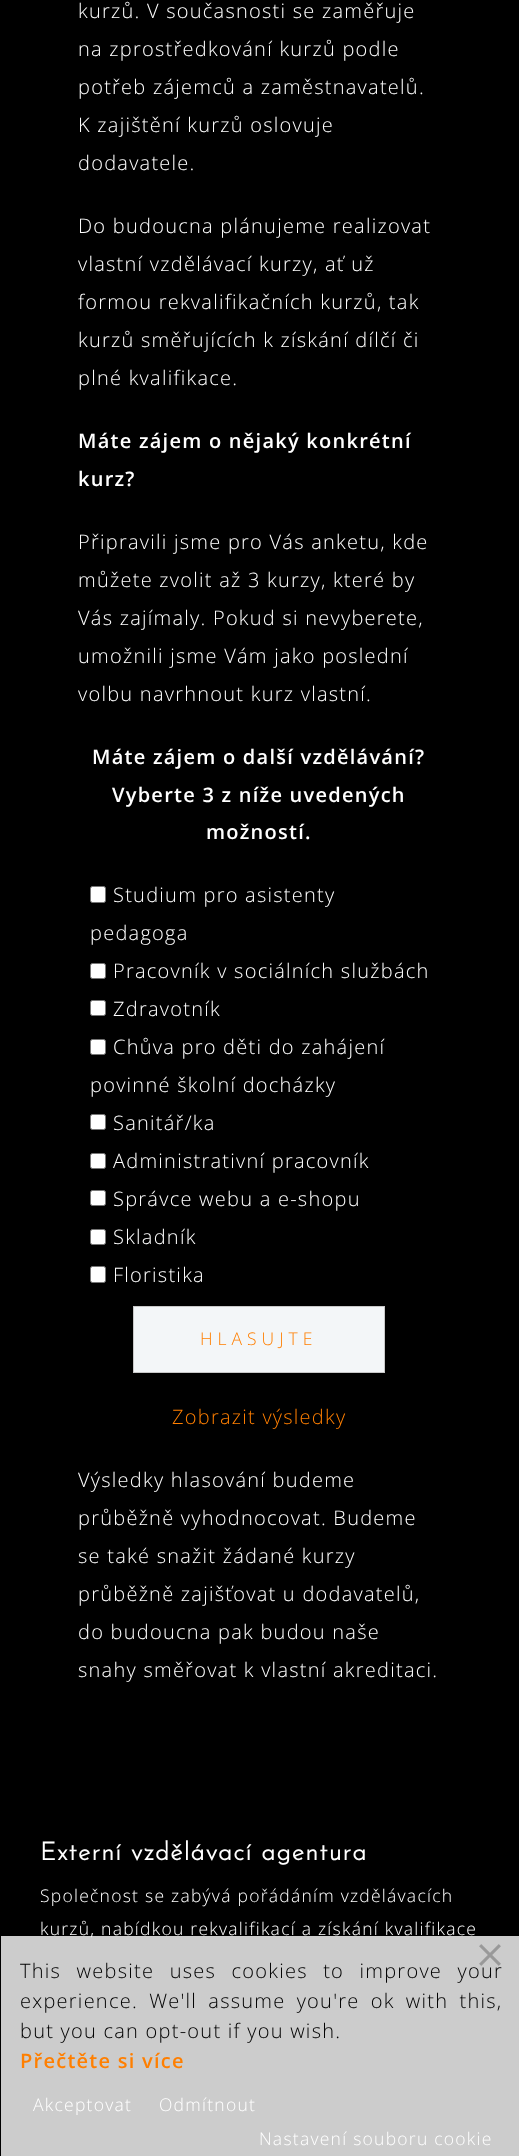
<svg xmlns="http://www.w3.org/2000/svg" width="519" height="2156">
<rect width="100%" height="100%" fill="#000"/>
<text x="78" y="18" style="font-family:Open Sans;font-size:20px;font-weight:300;letter-spacing:1.25px;fill:#fff">kurzů. V současnosti se zaměřuje</text>
<text x="78" y="56" style="font-family:Open Sans;font-size:20px;font-weight:300;letter-spacing:1.25px;fill:#fff">na zprostředkování kurzů podle</text>
<text x="78" y="94" style="font-family:Open Sans;font-size:20px;font-weight:300;letter-spacing:1.25px;fill:#fff">potřeb zájemců a zaměstnavatelů.</text>
<text x="78" y="132" style="font-family:Open Sans;font-size:20px;font-weight:300;letter-spacing:1.25px;fill:#fff">K zajištění kurzů oslovuje</text>
<text x="78" y="170" style="font-family:Open Sans;font-size:20px;font-weight:300;letter-spacing:1.25px;fill:#fff">dodavatele.</text>
<text x="78" y="233" style="font-family:Open Sans;font-size:20px;font-weight:300;letter-spacing:1.25px;fill:#fff">Do budoucna plánujeme realizovat</text>
<text x="78" y="271" style="font-family:Open Sans;font-size:20px;font-weight:300;letter-spacing:1.25px;fill:#fff">vlastní vzdělávací kurzy, ať už</text>
<text x="78" y="309" style="font-family:Open Sans;font-size:20px;font-weight:300;letter-spacing:1.25px;fill:#fff">formou rekvalifikačních kurzů, tak</text>
<text x="78" y="347" style="font-family:Open Sans;font-size:20px;font-weight:300;letter-spacing:1.25px;fill:#fff">kurzů směřujících k získání dílčí či</text>
<text x="78" y="385" style="font-family:Open Sans;font-size:20px;font-weight:300;letter-spacing:1.25px;fill:#fff">plné kvalifikace.</text>
<text x="78" y="448" style="font-family:Open Sans;font-size:20px;font-weight:600;letter-spacing:1.25px;fill:#fff">Máte zájem o nějaký konkrétní</text>
<text x="78" y="486" style="font-family:Open Sans;font-size:20px;font-weight:600;letter-spacing:1.25px;fill:#fff">kurz?</text>
<text x="78" y="549" style="font-family:Open Sans;font-size:20px;font-weight:300;letter-spacing:1.25px;fill:#fff">Připravili jsme pro Vás anketu, kde</text>
<text x="78" y="587" style="font-family:Open Sans;font-size:20px;font-weight:300;letter-spacing:1.25px;fill:#fff">můžete zvolit až 3 kurzy, které by</text>
<text x="78" y="625" style="font-family:Open Sans;font-size:20px;font-weight:300;letter-spacing:1.25px;fill:#fff">Vás zajímaly. Pokud si nevyberete,</text>
<text x="78" y="663" style="font-family:Open Sans;font-size:20px;font-weight:300;letter-spacing:1.25px;fill:#fff">umožnili jsme Vám jako poslední</text>
<text x="78" y="701" style="font-family:Open Sans;font-size:20px;font-weight:300;letter-spacing:1.25px;fill:#fff">volbu navrhnout kurz vlastní.</text>
<text x="92" y="764" style="font-family:Open Sans;font-size:20px;font-weight:600;letter-spacing:1.25px;fill:#fff">Máte zájem o další vzdělávání?</text>
<text x="112" y="802" style="font-family:Open Sans;font-size:20px;font-weight:600;letter-spacing:1.25px;fill:#fff">Vyberte 3 z níže uvedených</text>
<text x="206" y="839" style="font-family:Open Sans;font-size:20px;font-weight:600;letter-spacing:1.25px;fill:#fff">možností.</text>
<rect x="90.5" y="886.5" width="15" height="16" rx="2" fill="#fff" stroke="#767676"/>
<text x="113" y="902" style="font-family:Open Sans;font-size:20px;font-weight:300;letter-spacing:1.25px;fill:#fff">Studium pro asistenty</text>
<text x="90" y="940" style="font-family:Open Sans;font-size:20px;font-weight:300;letter-spacing:1.25px;fill:#fff">pedagoga</text>
<rect x="90.5" y="963.5" width="15" height="15" rx="2" fill="#fff" stroke="#767676"/>
<text x="113" y="978" style="font-family:Open Sans;font-size:20px;font-weight:300;letter-spacing:1.25px;fill:#fff">Pracovník v sociálních službách</text>
<rect x="90.5" y="1000.5" width="15" height="15" rx="2" fill="#fff" stroke="#767676"/>
<text x="113" y="1016" style="font-family:Open Sans;font-size:20px;font-weight:300;letter-spacing:1.25px;fill:#fff">Zdravotník</text>
<rect x="90.5" y="1039.5" width="15" height="15" rx="2" fill="#fff" stroke="#767676"/>
<text x="113" y="1054" style="font-family:Open Sans;font-size:20px;font-weight:300;letter-spacing:1.25px;fill:#fff">Chůva pro děti do zahájení</text>
<text x="90" y="1092" style="font-family:Open Sans;font-size:20px;font-weight:300;letter-spacing:1.25px;fill:#fff">povinné školní docházky</text>
<rect x="90.5" y="1114.5" width="15" height="15" rx="2" fill="#fff" stroke="#767676"/>
<text x="113" y="1130" style="font-family:Open Sans;font-size:20px;font-weight:300;letter-spacing:1.25px;fill:#fff">Sanitář/ka</text>
<rect x="90.5" y="1153.5" width="15" height="15" rx="2" fill="#fff" stroke="#767676"/>
<text x="113" y="1168" style="font-family:Open Sans;font-size:20px;font-weight:300;letter-spacing:1.25px;fill:#fff">Administrativní pracovník</text>
<rect x="90.5" y="1190.5" width="15" height="15" rx="2" fill="#fff" stroke="#767676"/>
<text x="113" y="1206" style="font-family:Open Sans;font-size:20px;font-weight:300;letter-spacing:1.25px;fill:#fff">Správce webu a e-shopu</text>
<rect x="90.5" y="1229.5" width="15" height="15" rx="2" fill="#fff" stroke="#767676"/>
<text x="113" y="1244" style="font-family:Open Sans;font-size:20px;font-weight:300;letter-spacing:1.25px;fill:#fff">Skladník</text>
<rect x="90.5" y="1266.5" width="15" height="16" rx="2" fill="#fff" stroke="#767676"/>
<text x="113" y="1282" style="font-family:Open Sans;font-size:20px;font-weight:300;letter-spacing:1.25px;fill:#fff">Floristika</text>
<rect x="133.5" y="1306.5" width="251" height="66" fill="#f3f6f8" stroke="#c8c8c8"/>
<text x="200" y="1345" style="font-family:Open Sans;font-size:17.5px;font-weight:300;letter-spacing:5px;fill:#ff7f00">HLASUJTE</text>
<text x="172" y="1424" style="font-family:Open Sans;font-size:20px;font-weight:300;letter-spacing:1.25px;fill:#ff7f00">Zobrazit výsledky</text>
<text x="78" y="1487" style="font-family:Open Sans;font-size:20px;font-weight:300;letter-spacing:1.25px;fill:#fff">Výsledky hlasování budeme</text>
<text x="78" y="1525" style="font-family:Open Sans;font-size:20px;font-weight:300;letter-spacing:1.25px;fill:#fff">průběžně vyhodnocovat. Budeme</text>
<text x="78" y="1563" style="font-family:Open Sans;font-size:20px;font-weight:300;letter-spacing:1.25px;fill:#fff">se také snažit žádané kurzy</text>
<text x="78" y="1601" style="font-family:Open Sans;font-size:20px;font-weight:300;letter-spacing:1.25px;fill:#fff">průběžně zajišťovat u dodavatelů,</text>
<text x="78" y="1639" style="font-family:Open Sans;font-size:20px;font-weight:300;letter-spacing:1.25px;fill:#fff">do budoucna pak budou naše</text>
<text x="78" y="1677" style="font-family:Open Sans;font-size:20px;font-weight:300;letter-spacing:1.25px;fill:#fff">snahy směřovat k vlastní akreditaci.</text>
<text x="40" y="1860" style="font-family:Josefin Sans;font-size:25px;font-weight:bold;letter-spacing:1.25px;fill:#fff">Externí vzdělávací agentura</text>
<text x="40" y="1902" style="font-family:Open Sans;font-size:17.5px;font-weight:300;letter-spacing:1.25px;fill:#fff">Společnost se zabývá pořádáním vzdělávacích</text>
<text x="40" y="1935" style="font-family:Open Sans;font-size:17.5px;font-weight:300;letter-spacing:1.25px;fill:#fff">kurzů, nabídkou rekvalifikací a získání kvalifikace</text>
<rect x="1" y="1936" width="518" height="220" fill="#ffffffcc"/>
<text x="20" y="1978" word-spacing="9" style="font-family:Open Sans;font-size:20px;font-weight:300;letter-spacing:1.25px;fill:#000">This website uses cookies to improve your</text>
<image x="479" y="1944" width="22" height="22" href="media/1.png"/>
<text x="20" y="2008" word-spacing="4.75" style="font-family:Open Sans;font-size:20px;font-weight:300;letter-spacing:1.25px;fill:#000">experience. We'll assume you're ok with this,</text>
<text x="20" y="2038" style="font-family:Open Sans;font-size:20px;font-weight:300;letter-spacing:1.25px;fill:#000">but you can opt-out if you wish.</text>
<text x="20" y="2068" style="font-family:Open Sans;font-size:20px;font-weight:600;letter-spacing:1.25px;fill:#ff7f00">Přečtěte si více</text>
<text x="33" y="2111" style="font-family:Open Sans;font-size:17.5px;font-weight:300;letter-spacing:1.25px;fill:#fff">Akceptovat</text>
<text x="159" y="2111" style="font-family:Open Sans;font-size:17.5px;font-weight:300;letter-spacing:1.25px;fill:#fff">Odmítnout</text>
<text x="259" y="2145" style="font-family:Open Sans;font-size:17.5px;font-weight:300;letter-spacing:1.25px;fill:#fff">Nastavení souboru cookie</text>
</svg>
